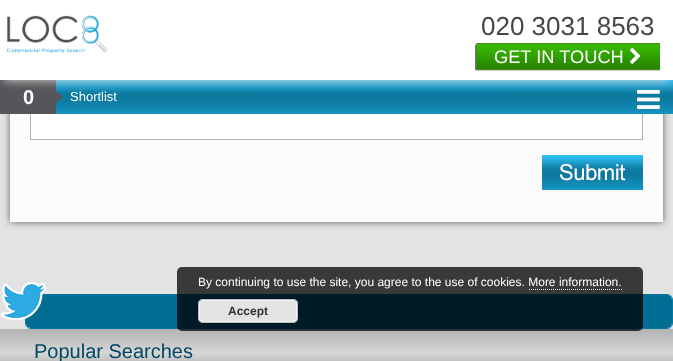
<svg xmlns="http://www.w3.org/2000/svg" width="673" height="361">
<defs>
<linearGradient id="g1" gradientUnits="userSpaceOnUse" x1="337" y1="80" x2="337" y2="114"><stop offset="0" stop-color="#2cbcf0"/><stop offset="0.4" stop-color="#0d7aa0"/><stop offset="0.6" stop-color="#0d7aa0"/><stop offset="1" stop-color="#1593c0"/></linearGradient>
<linearGradient id="g2" gradientUnits="userSpaceOnUse" x1="337" y1="329" x2="337" y2="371"><stop offset="0" stop-color="#b2b2b2"/><stop offset="0.56" stop-color="#d6d6d6"/><stop offset="1" stop-color="#aeabab"/></linearGradient>
</defs>
<rect width="100%" height="100%" fill="#e3e3e3"/>
<rect x="10" y="-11" width="653" height="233" fill="#323232bf" filter="blur(3.5px)"/>
<rect x="10" y="114" width="653" height="108" fill="#fcfcfc"/>
<rect x="31" y="114" width="611" height="25" fill="#fff"/>
<rect x="30.5" y="108.5" width="612" height="31" fill="none" stroke="#b1b1b1"/>
<image x="542" y="155" width="101" height="35" href="media/1.png"/>
<rect x="25.5" y="294.5" width="647" height="34" rx="5.5" fill="none" stroke="#0379a3"/>
<rect x="26" y="295" width="646" height="33" rx="5" fill="#026d93"/>
<image x="1" y="282" width="46" height="38" href="media/2.png"/>
<rect x="56" y="80" width="617" height="34" fill="url(#g1)"/>
<rect y="80" width="56" height="34" fill="#56565a"/>
<path d="M50 108v-22l13 11z" fill="#56565a"/>
<image x="637" y="89" width="23" height="20" href="media/6.png"/>
<rect x="4" y="9" width="665" height="72" fill="#ccc" filter="blur(5px)"/>
<rect width="673" height="80" fill="#fff"/>
<image x="7" y="15" width="100" height="38" href="media/3.png"/>
<text x="481" y="35" style="font-family:Liberation Sans;font-size:26px;fill:#474747">020 3031 8563</text>
<image x="475" y="43" width="185" height="28" href="media/4.png"/>
<text x="494" y="63" style="font-family:Liberation Sans;font-size:18.25px;fill:#fff">GET IN TOUCH</text>
<image x="629" y="47" width="12" height="17" href="media/5.png"/>
<text x="23" y="104" style="font-family:Liberation Sans;font-size:20px;font-weight:bold;fill:#fff">0</text>
<text x="70" y="101" style="font-family:Liberation Sans;font-size:13px;fill:#fff">Shortlist</text>
<rect y="329" width="673" height="32" fill="url(#g2)"/>
<rect x="177" y="267" width="466" height="64" rx="5" fill="#000000bf"/>
<text x="198" y="286" style="font-family:Liberation Sans;font-size:12px;fill:#fff">By continuing to use the site, you agree to the use of cookies. More information.</text>
<path d="M529 289.5h93" fill="none" stroke="#eee" stroke-dasharray="1 1"/>
<rect x="198" y="299" width="100" height="24" rx="5" fill="#e3e3e3"/>
<rect x="199.5" y="300.5" width="97" height="21" rx="3.5" fill="none" stroke="#f6f6f6"/>
<rect x="198.5" y="299.5" width="99" height="23" rx="4.5" fill="none" stroke="#bbb"/>
<text x="228" y="315" style="font-family:Liberation Sans;font-size:12px;font-weight:bold;fill:#333">Accept</text>
<text x="34" y="358" style="font-family:Liberation Sans;font-size:20px;fill:#004761">Popular Searches</text>
</svg>
